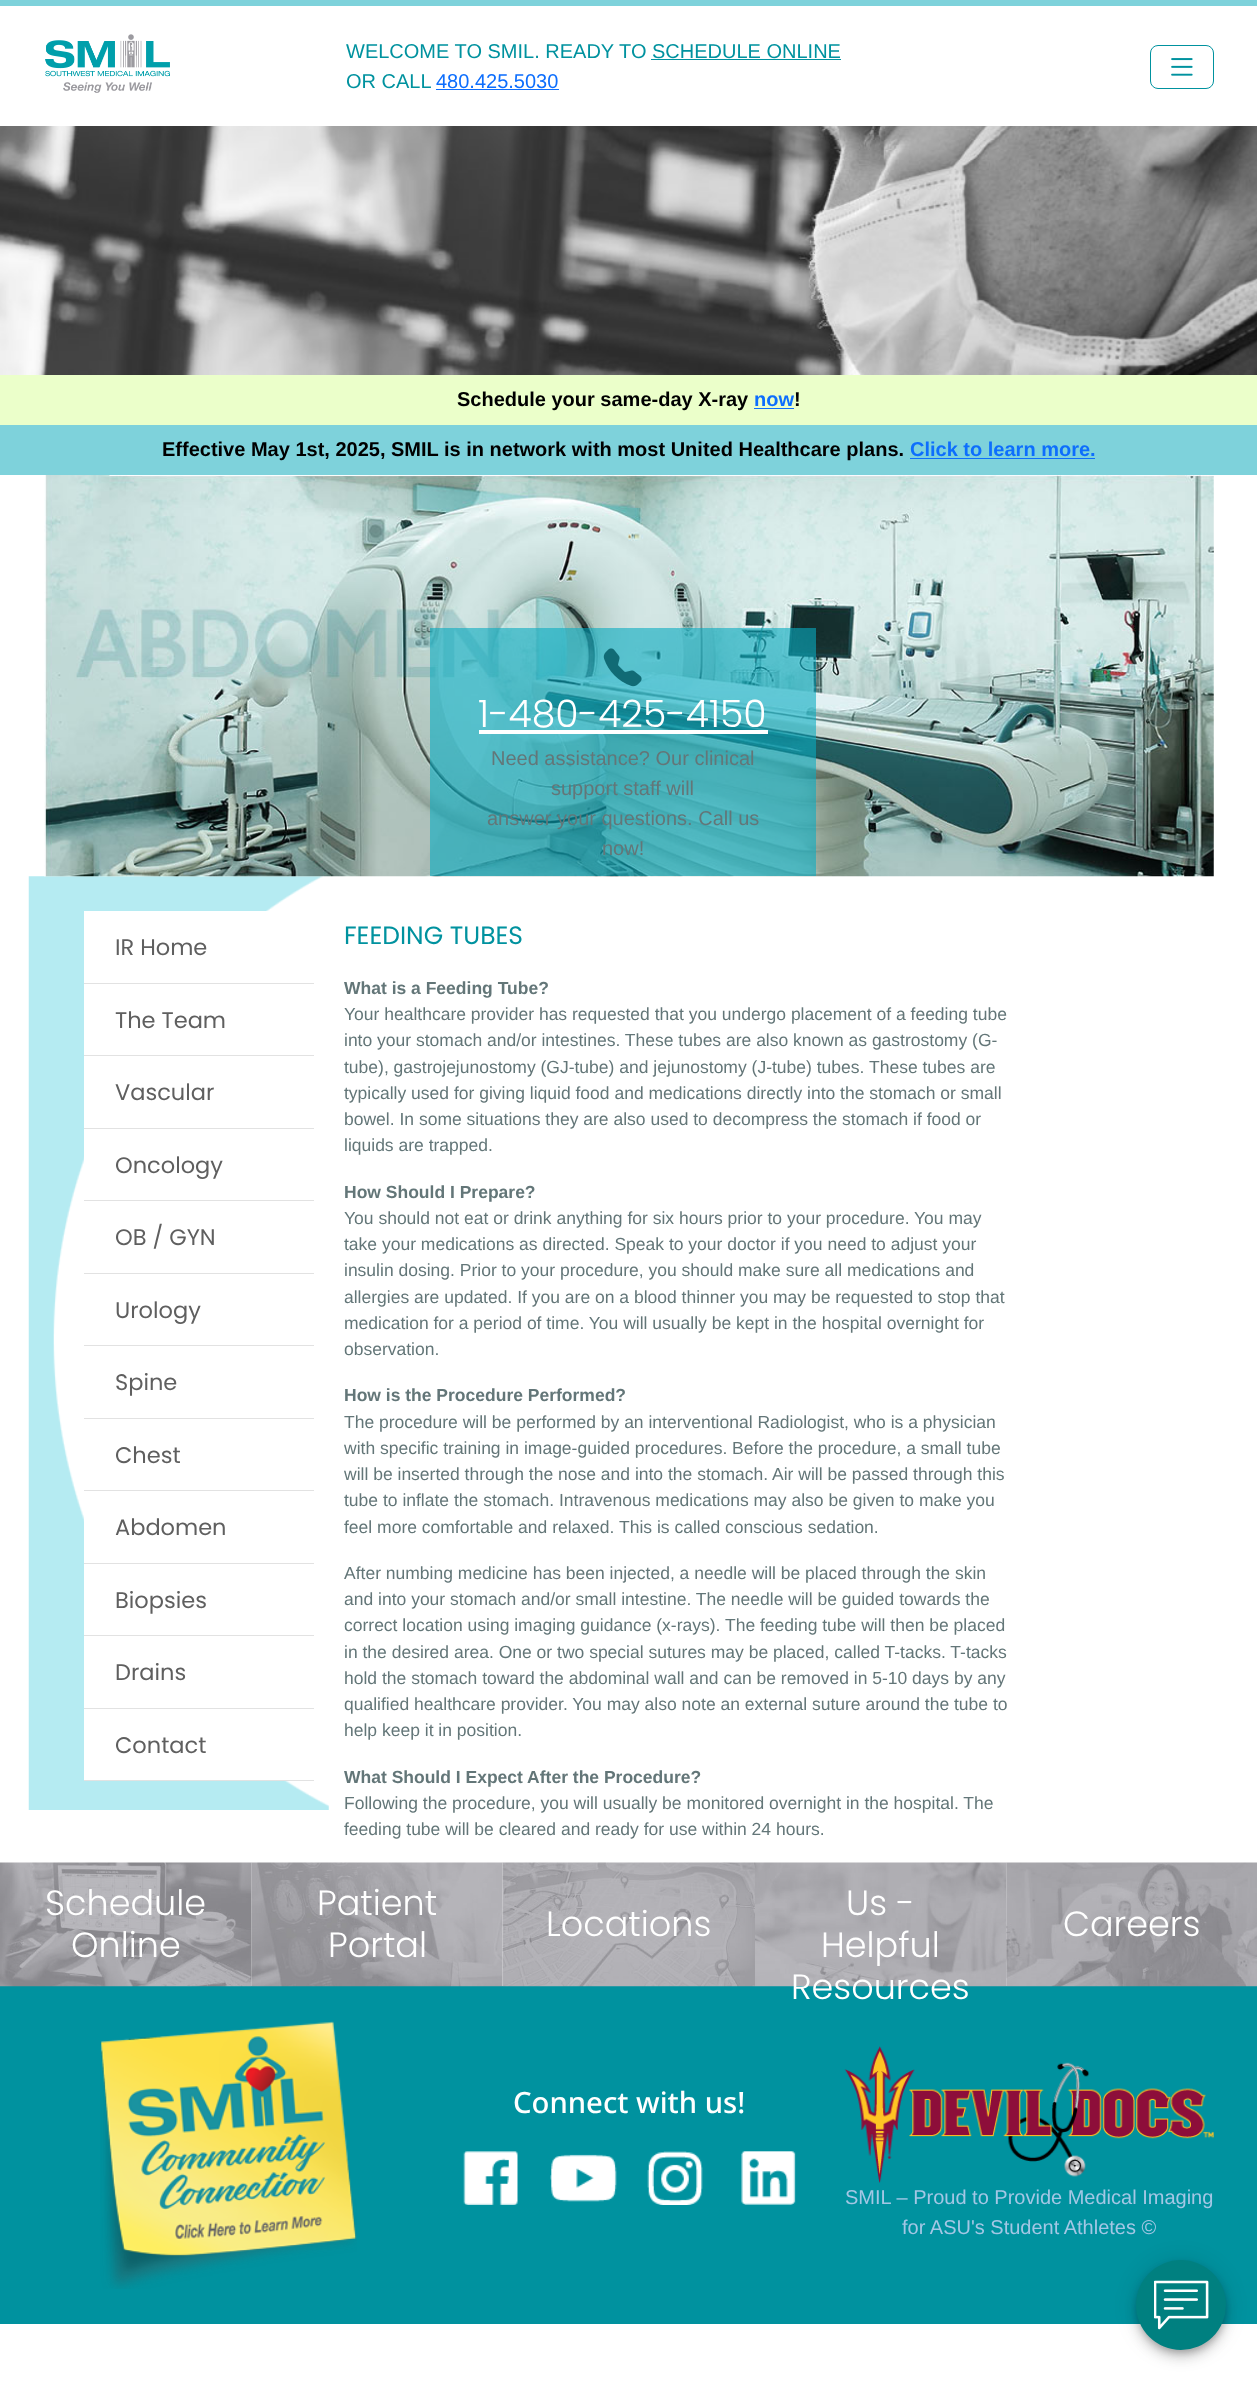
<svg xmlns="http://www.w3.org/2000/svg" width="1257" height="2381">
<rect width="100%" height="100%" fill="#fff"/>
<rect width="1257" height="6" fill="#7ed2db"/>
<image x="45" y="34" width="125" height="59" href="media/1.png"/>
<text x="346" y="58" style="font-family:Liberation Sans;font-size:20px;fill:#00929f">WELCOME TO SMIL. READY TO SCHEDULE ONLINE</text>
<rect x="651" y="59" width="190" height="1" fill="#00929f"/>
<text x="346" y="88" style="font-family:Liberation Sans;font-size:20px;fill:#00929f">OR CALL</text>
<text x="436" y="88" style="font-family:Liberation Sans;font-size:20px;fill:#0d6efd">480.425.5030</text>
<rect x="436" y="89" width="123" height="1" fill="#0d6efd"/>
<rect x="1150.5" y="45.5" width="63" height="43" rx="7.5" fill="none" stroke="#00929f"/>
<image x="1171" y="58" width="22" height="18" href="media/2.png"/>
<image x="0" y="126" width="1257" height="249" href="media/3.png"/>
<rect y="375" width="1257" height="50" fill="#ebffca"/>
<text x="457" y="406" style="font-family:Liberation Sans;font-size:20px;font-weight:bold;fill:#000">Schedule your same-day X-ray</text>
<text x="754" y="406" style="font-family:Liberation Sans;font-size:20px;font-weight:bold;fill:#0d6efd">now</text>
<rect x="754" y="408" width="40" height="1" fill="#0d6efd"/>
<text x="794" y="406" style="font-family:Liberation Sans;font-size:20px;font-weight:bold;fill:#000">!</text>
<rect y="425" width="1257" height="50" fill="#7ed2db"/>
<text x="162" y="456" style="font-family:Liberation Sans;font-size:20px;font-weight:bold;fill:#000">Effective May 1st, 2025, SMIL is in network with most United Healthcare plans.</text>
<text x="910" y="456" style="font-family:Liberation Sans;font-size:20px;font-weight:bold;fill:#0d6efd">Click to learn more.</text>
<rect x="910" y="458" width="185" height="1" fill="#0d6efd"/>
<image x="28" y="876" width="301" height="934" href="media/6.png"/>
<image x="44" y="475" width="1170" height="402" href="media/4.png"/>
<rect x="430" y="628" width="386" height="248" fill="#08acc199"/>
<image x="603" y="648" width="39" height="39" href="media/5.png"/>
<text x="478" y="727" style="font-family:Poppins;font-size:37.75px;font-weight:300;fill:#fff">1-480-425-4150</text>
<rect x="479" y="730" width="289" height="4" fill="#fff"/>
<text x="491" y="765" style="font-family:Liberation Sans;font-size:20px;fill:#637678">Need assistance? Our clinical</text>
<text x="551" y="795" style="font-family:Liberation Sans;font-size:20px;fill:#637678">support staff will</text>
<text x="487" y="825" style="font-family:Liberation Sans;font-size:20px;fill:#637678">answer your questions. Call us</text>
<text x="602" y="855" style="font-family:Liberation Sans;font-size:20px;fill:#637678">now!</text>
<rect x="84" y="911" width="185" height="72" fill="#fff"/>
<rect x="84" y="983" width="230" height="1" fill="#e2e2e2"/>
<text x="115" y="955" style="font-family:Poppins;font-size:22.5px;fill:#5f5f5f">IR Home</text>
<rect x="84" y="984" width="104" height="71" fill="#fff"/>
<rect x="84" y="1055" width="230" height="1" fill="#e2e2e2"/>
<text x="115" y="1028" style="font-family:Poppins;font-size:22.5px;fill:#5f5f5f">The Team</text>
<rect x="84" y="1056" width="50" height="72" fill="#fff"/>
<rect x="84" y="1128" width="230" height="1" fill="#e2e2e2"/>
<text x="115" y="1100" style="font-family:Poppins;font-size:22.5px;fill:#5f5f5f">Vascular</text>
<rect x="84" y="1129" width="13" height="32" fill="#fff"/>
<rect x="84" y="1200" width="230" height="1" fill="#e2e2e2"/>
<text x="115" y="1173" style="font-family:Poppins;font-size:22.5px;fill:#5f5f5f">Oncology</text>
<rect x="84" y="1273" width="230" height="1" fill="#e2e2e2"/>
<text x="115" y="1245" style="font-family:Poppins;font-size:22.5px;fill:#5f5f5f">OB / GYN</text>
<rect x="84" y="1345" width="230" height="1" fill="#e2e2e2"/>
<text x="115" y="1318" style="font-family:Poppins;font-size:22.5px;fill:#5f5f5f">Urology</text>
<rect x="84" y="1418" width="230" height="1" fill="#e2e2e2"/>
<text x="115" y="1390" style="font-family:Poppins;font-size:22.5px;fill:#5f5f5f">Spine</text>
<rect x="84" y="1490" width="230" height="1" fill="#e2e2e2"/>
<text x="115" y="1463" style="font-family:Poppins;font-size:22.5px;fill:#5f5f5f">Chest</text>
<rect x="84" y="1518" width="19" height="45" fill="#fff"/>
<rect x="84" y="1563" width="230" height="1" fill="#e2e2e2"/>
<text x="115" y="1535" style="font-family:Poppins;font-size:22.5px;fill:#5f5f5f">Abdomen</text>
<rect x="84" y="1564" width="58" height="71" fill="#fff"/>
<rect x="84" y="1635" width="230" height="1" fill="#e2e2e2"/>
<text x="115" y="1608" style="font-family:Poppins;font-size:22.5px;fill:#5f5f5f">Biopsies</text>
<rect x="84" y="1636" width="116" height="72" fill="#fff"/>
<rect x="84" y="1708" width="230" height="1" fill="#e2e2e2"/>
<text x="115" y="1680" style="font-family:Poppins;font-size:22.5px;fill:#5f5f5f">Drains</text>
<rect x="84" y="1709" width="202" height="71" fill="#fff"/>
<rect x="84" y="1780" width="230" height="1" fill="#e2e2e2"/>
<text x="115" y="1753" style="font-family:Poppins;font-size:22.5px;fill:#5f5f5f">Contact</text>
<text x="344" y="944" style="font-family:Poppins;font-size:25px;fill:#00929f">FEEDING TUBES</text>
<text x="344" y="994" style="font-family:Liberation Sans;font-size:17.5px;font-weight:bold;fill:#637678">What is a Feeding Tube?</text>
<text x="344" y="1020" style="font-family:Liberation Sans;font-size:17.5px;fill:#637678">Your healthcare provider has requested that you undergo placement of a feeding tube</text>
<text x="344" y="1046" style="font-family:Liberation Sans;font-size:17.5px;fill:#637678">into your stomach and/or intestines. These tubes are also known as gastrostomy (G-</text>
<text x="344" y="1073" style="font-family:Liberation Sans;font-size:17.5px;fill:#637678">tube), gastrojejunostomy (GJ-tube) and jejunostomy (J-tube) tubes.</text>
<text x="869" y="1073" style="font-family:Liberation Sans;font-size:17.5px;fill:#637678">These tubes are</text>
<text x="344" y="1099" style="font-family:Liberation Sans;font-size:17.5px;fill:#637678">typically used for giving liquid food and medications directly into the stomach or small</text>
<text x="344" y="1125" style="font-family:Liberation Sans;font-size:17.5px;fill:#637678">bowel. In some situations they are also used to decompress the stomach if food or</text>
<text x="344" y="1151" style="font-family:Liberation Sans;font-size:17.5px;fill:#637678">liquids are trapped.</text>
<text x="344" y="1198" style="font-family:Liberation Sans;font-size:17.5px;font-weight:bold;fill:#637678">How Should I Prepare?</text>
<text x="344" y="1224" style="font-family:Liberation Sans;font-size:17.5px;fill:#637678">You should not eat or drink anything for six hours prior to your procedure. You may</text>
<text x="344" y="1250" style="font-family:Liberation Sans;font-size:17.5px;fill:#637678">take your medications as directed. Speak to your doctor if you need to adjust your</text>
<text x="344" y="1276" style="font-family:Liberation Sans;font-size:17.5px;fill:#637678">insulin dosing. Prior to your procedure, you should make sure all medications and</text>
<text x="344" y="1303" style="font-family:Liberation Sans;font-size:17.5px;fill:#637678">allergies are updated. If you are on a blood thinner you may be requested to stop that</text>
<text x="344" y="1329" style="font-family:Liberation Sans;font-size:17.5px;fill:#637678">medication for a period of time. You will usually be kept in the hospital overnight for</text>
<text x="344" y="1355" style="font-family:Liberation Sans;font-size:17.5px;fill:#637678">observation.</text>
<text x="344" y="1401" style="font-family:Liberation Sans;font-size:17.5px;font-weight:bold;fill:#637678">How is the Procedure Performed?</text>
<text x="344" y="1428" style="font-family:Liberation Sans;font-size:17.5px;fill:#637678">The procedure will be performed by an interventional Radiologist, who is a physician</text>
<text x="344" y="1454" style="font-family:Liberation Sans;font-size:17.5px;fill:#637678">with specific training in image-guided procedures. Before the procedure, a small tube</text>
<text x="344" y="1480" style="font-family:Liberation Sans;font-size:17.5px;fill:#637678">will be inserted through the nose and into the stomach. Air will be passed through this</text>
<text x="344" y="1506" style="font-family:Liberation Sans;font-size:17.5px;fill:#637678">tube to inflate the stomach. Intravenous medications may also be given to make you</text>
<text x="344" y="1533" style="font-family:Liberation Sans;font-size:17.5px;fill:#637678">feel more comfortable and relaxed.</text>
<text x="619" y="1533" style="font-family:Liberation Sans;font-size:17.5px;fill:#637678">This is called conscious sedation.</text>
<text x="344" y="1579" style="font-family:Liberation Sans;font-size:17.5px;fill:#637678">After numbing medicine has been injected, a needle will be placed through the skin</text>
<text x="344" y="1605" style="font-family:Liberation Sans;font-size:17.5px;fill:#637678">and into your stomach and/or small intestine. The needle will be guided towards the</text>
<text x="344" y="1631" style="font-family:Liberation Sans;font-size:17.5px;fill:#637678">correct location using imaging guidance (x-rays). The feeding tube will then be placed</text>
<text x="344" y="1658" style="font-family:Liberation Sans;font-size:17.5px;fill:#637678">in the desired area. One or two special sutures may be placed, called T-tacks. T-tacks</text>
<text x="344" y="1684" style="font-family:Liberation Sans;font-size:17.5px;fill:#637678">hold the stomach toward the abdominal wall and can be removed in 5-10 days by any</text>
<text x="344" y="1710" style="font-family:Liberation Sans;font-size:17.5px;fill:#637678">qualified healthcare provider. You may also note an external suture around the tube to</text>
<text x="344" y="1736" style="font-family:Liberation Sans;font-size:17.5px;fill:#637678">help keep it in position.</text>
<text x="344" y="1783" style="font-family:Liberation Sans;font-size:17.5px;font-weight:bold;fill:#637678">What Should I Expect After the Procedure?</text>
<text x="344" y="1809" style="font-family:Liberation Sans;font-size:17.5px;fill:#637678">Following the procedure, you will usually be monitored overnight in the hospital. The</text>
<text x="344" y="1835" style="font-family:Liberation Sans;font-size:17.5px;fill:#637678">feeding tube will be cleared and ready for use within 24 hours.</text>
<rect y="1986" width="1257" height="338" fill="#00929f"/>
<image x="0" y="1862" width="252" height="125" href="media/7.png"/>
<text x="45" y="1915" style="font-family:Poppins;font-size:35px;font-weight:300;fill:#fff">Schedule</text>
<text x="71" y="1957" style="font-family:Poppins;font-size:35px;font-weight:300;fill:#fff">Online</text>
<image x="251" y="1862" width="252" height="125" href="media/8.png"/>
<text x="317" y="1915" style="font-family:Poppins;font-size:35px;font-weight:300;fill:#fff">Patient</text>
<text x="328" y="1957" style="font-family:Poppins;font-size:35px;font-weight:300;fill:#fff">Portal</text>
<image x="502" y="1862" width="253" height="125" href="media/9.png"/>
<text x="546" y="1936" style="font-family:Poppins;font-size:35px;font-weight:300;fill:#fff">Locations</text>
<image x="755" y="1862" width="252" height="125" href="media/10.png"/>
<text x="846" y="1915" style="font-family:Poppins;font-size:35px;font-weight:300;fill:#fff">Us -</text>
<text x="821" y="1957" style="font-family:Poppins;font-size:35px;font-weight:300;fill:#fff">Helpful</text>
<text x="791" y="1999" style="font-family:Poppins;font-size:35px;font-weight:300;fill:#fff">Resources</text>
<image x="1006" y="1862" width="251" height="125" href="media/11.png"/>
<text x="1063" y="1936" style="font-family:Poppins;font-size:35px;font-weight:300;fill:#fff">Careers</text>
<image x="100" y="2021" width="257" height="268" href="media/12.png"/>
<text x="513" y="2113" style="font-family:Noto Sans;font-size:29.25px;font-weight:500;fill:#fff">Connect with us!</text>
<image x="463" y="2151" width="55" height="54" href="media/13.png"/>
<image x="550" y="2154" width="67" height="48" href="media/14.png"/>
<image x="647" y="2151" width="56" height="54" href="media/15.png"/>
<image x="741" y="2151" width="55" height="54" href="media/16.png"/>
<image x="844" y="2046" width="370" height="137" href="media/17.png"/>
<text x="845" y="2204" style="font-family:Liberation Sans;font-size:20px;fill:#a3c7e5">SMIL – Proud to Provide Medical Imaging</text>
<text x="902" y="2234" style="font-family:Liberation Sans;font-size:20px;fill:#a3c7e5">for ASU's Student Athletes ©</text>
<rect x="1136" y="2261" width="90" height="90" rx="45" fill="#0000001f" filter="blur(11px)"/>
<rect x="1136" y="2268" width="90" height="90" rx="45" fill="#00000024" filter="blur(6px)"/>
<rect x="1138" y="2265" width="87" height="88" rx="43.5" fill="#00000033" filter="blur(3px)"/>
<circle cx="1181" cy="2305" r="45" fill="#008080"/>
<image x="1154" y="2280" width="55" height="50" href="media/18.png"/>
</svg>
